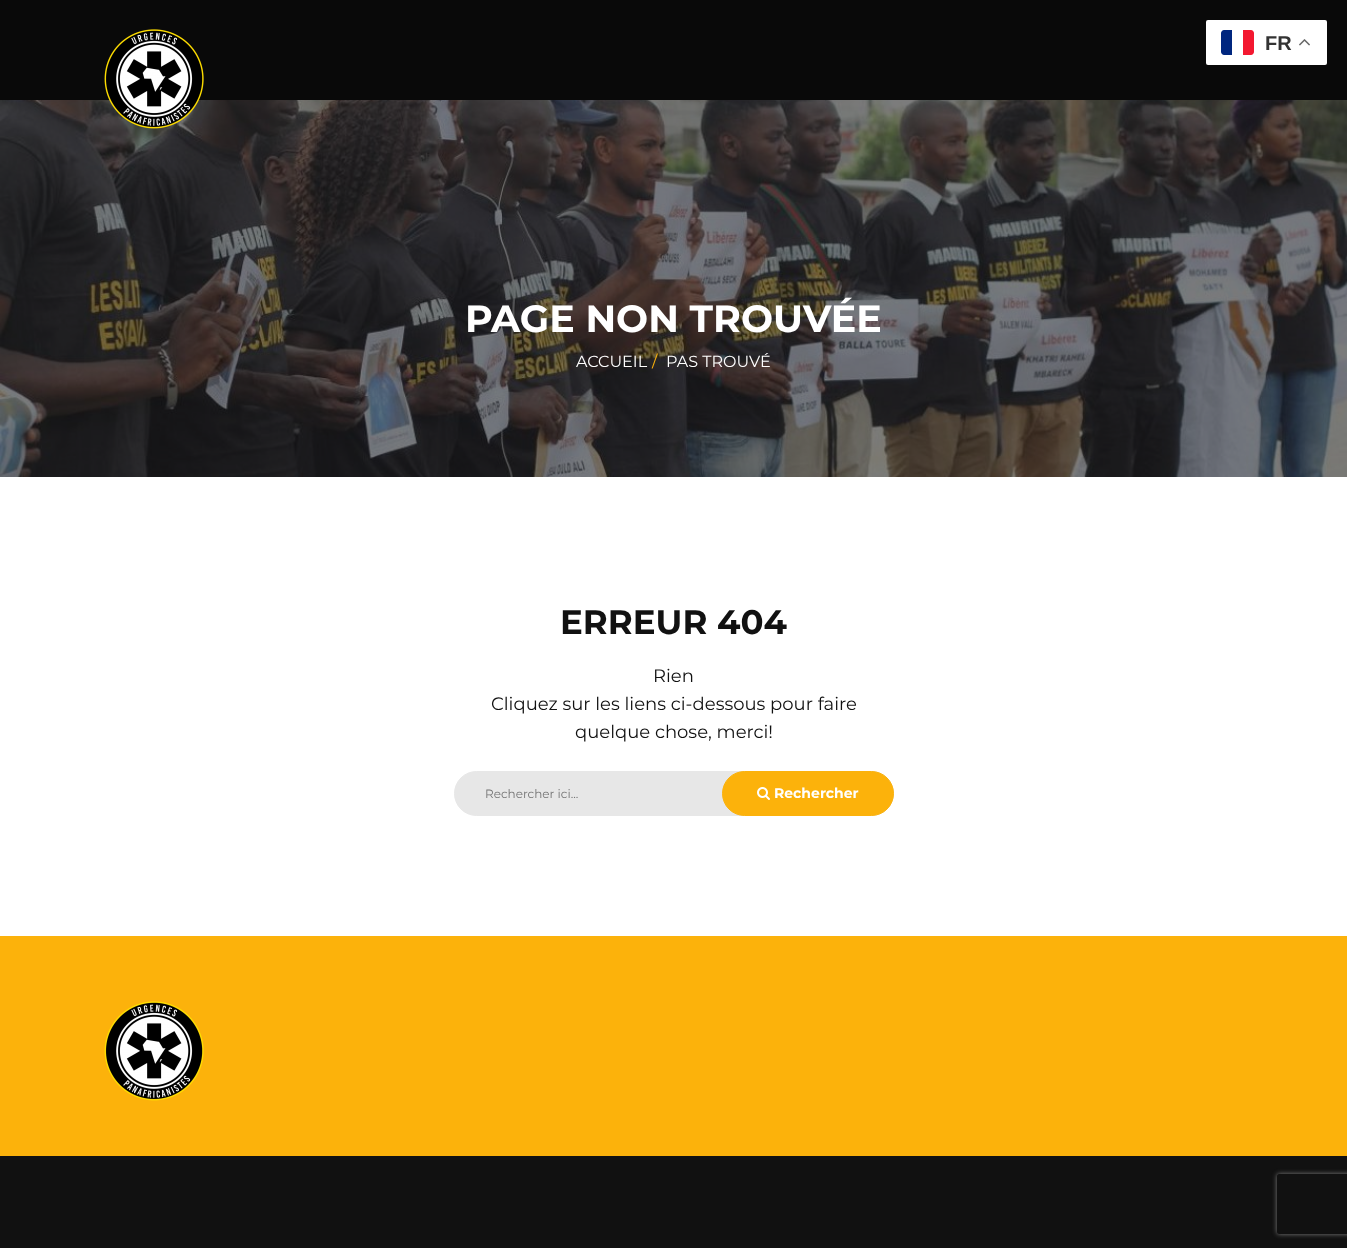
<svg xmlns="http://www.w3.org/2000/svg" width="1347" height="1248">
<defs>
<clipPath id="clip1"><path d="M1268 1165h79v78h-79zm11 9h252c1 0 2 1 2 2v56c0 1-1 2-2 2h-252c-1 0-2-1-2-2v-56c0-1 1-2 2-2z" clip-rule="evenodd"/></clipPath>
</defs>
<rect width="100%" height="100%" fill="#fff"/>
<rect width="1347" height="100" fill="#090909"/>
<rect x="1206" y="20" width="121" height="45" rx="2" fill="#fff"/>
<path d="M1224 30h8v25h-8c-1.5 0-3-1.5-3-3v-19c0-1.5 1.5-3 3-3z" fill="#00267f"/>
<path d="M1243 30h8c1.5 0 3 1.5 3 3v19c0 1.5-1.5 3-3 3h-8z" fill="#f31830"/>
<text x="1265" y="50" style="font-family:Liberation Sans;font-size:20px;font-weight:bold;fill:#333">FR</text>
<image x="1299" y="39" width="11" height="7" href="media/1.png"/>
<image x="0" y="100" width="1347" height="377" href="media/2.png"/>
<image x="104" y="29" width="100" height="100" href="media/3.png"/>
<text x="465" y="332" style="font-family:Montserrat;font-size:38px;font-weight:bold;fill:#fff">PAGE NON TROUVÉE</text>
<text x="576" y="367" style="font-family:Montserrat;font-size:16px;font-weight:100;fill:#fff">ACCUEIL</text>
<text x="652" y="367" style="font-family:Montserrat;font-size:16px;font-weight:100;fill:#fcb20b">/</text>
<text x="666" y="367" style="font-family:Montserrat;font-size:16px;font-weight:100;fill:#fff">PAS TROUVÉ</text>
<text x="560" y="634" style="font-family:Montserrat;font-size:34px;font-weight:bold;fill:#111">ERREUR 404</text>
<text x="653" y="682" style="font-family:Montserrat;font-size:18px;font-weight:100;fill:#111">Rien</text>
<text x="491" y="710" style="font-family:Montserrat;font-size:18px;font-weight:100;fill:#111">Cliquez sur les liens ci-dessous pour faire</text>
<text x="575" y="738" style="font-family:Montserrat;font-size:18px;font-weight:100;fill:#111">quelque chose, merci!</text>
<rect x="454.5" y="771.5" width="439" height="44" rx="22" fill="#e7e7e7" stroke="#e7e7e7"/>
<text x="485" y="798" style="font-family:Montserrat;font-size:12px;font-weight:100;fill:#757575">Rechercher ici...</text>
<rect x="722.5" y="771.5" width="171" height="44" rx="22" fill="#fcb20b" stroke="#fcb20b"/>
<image x="757" y="787" width="13" height="13" href="media/4.png"/>
<text x="774" y="798" style="font-family:Montserrat;font-size:14px;font-weight:bold;fill:#fff">Rechercher</text>
<rect y="936" width="1347" height="220" fill="#fcb20b"/>
<image x="104" y="1001" width="100" height="100" href="media/5.png"/>
<rect y="1156" width="1347" height="92" fill="#111"/>
<g clip-path="url(#clip1)">
<rect x="1277" y="1174" width="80" height="60" rx="2" fill="#808080" filter="blur(2.5px)"/>
</g>
</svg>
